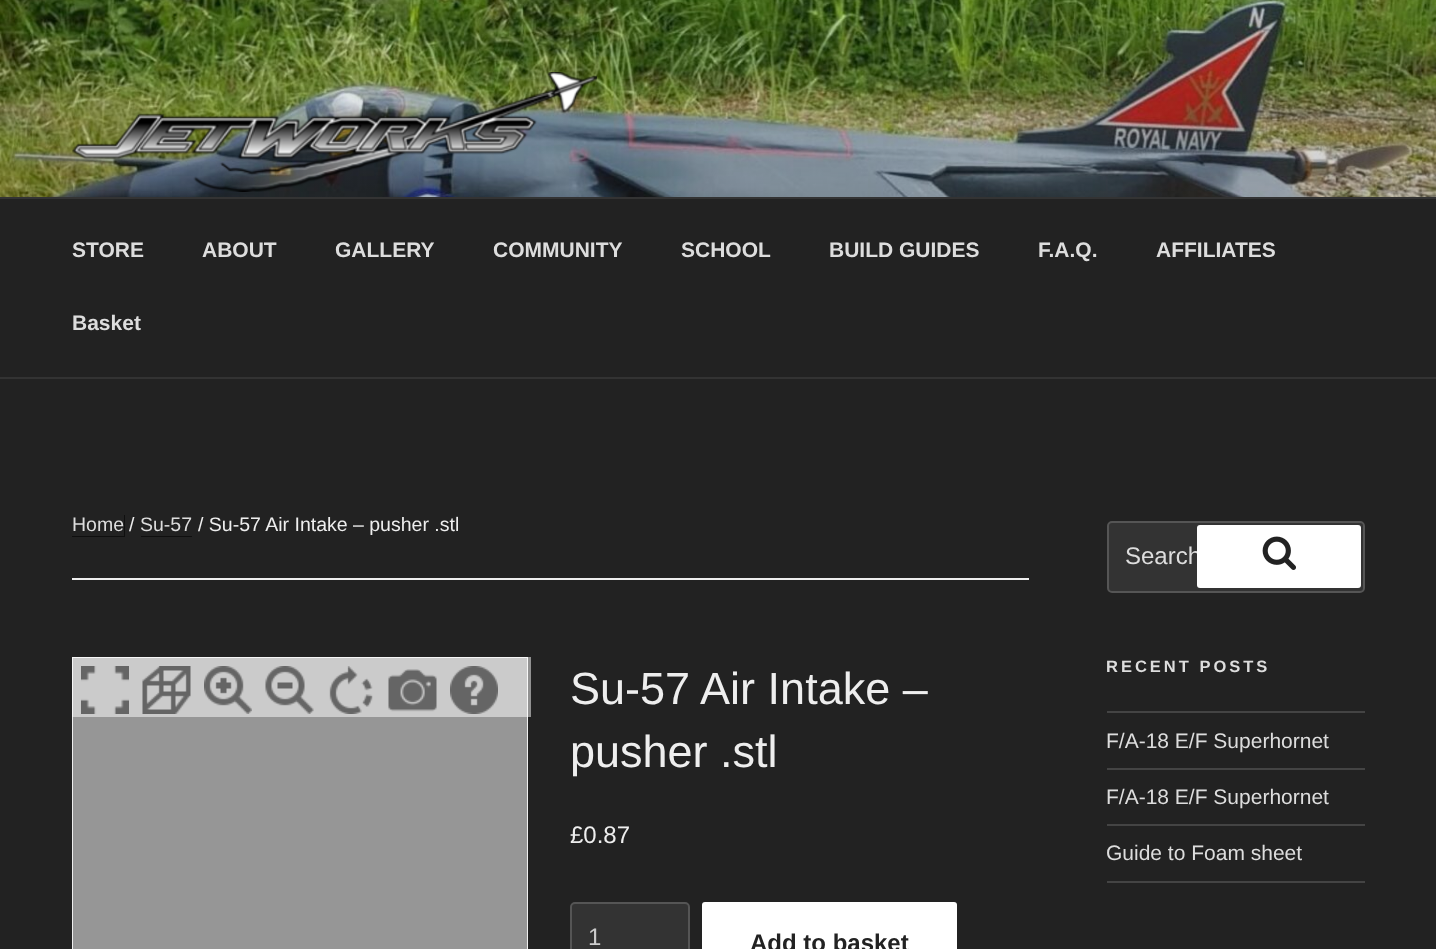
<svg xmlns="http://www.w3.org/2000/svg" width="1436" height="949">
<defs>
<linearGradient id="g1" gradientUnits="userSpaceOnUse" x1="719" y1="0" x2="719" y2="378"><stop offset="0" stop-color="#000" stop-opacity="0"/><stop offset="0.75" stop-color="#000" stop-opacity="0.3"/><stop offset="1" stop-color="#000" stop-opacity="0.3"/></linearGradient>
</defs>
<rect width="100%" height="100%" fill="#222"/>
<image x="0" y="0" width="1436" height="197" href="media/1.png"/>
<rect y="20" width="1436" height="177" fill="url(#g1)"/>
<image x="72" y="72" width="525" height="120" href="media/2.png"/>
<rect y="197" width="1436" height="2" fill="#333"/>
<rect y="377" width="1436" height="2" fill="#333"/>
<text x="72" y="257" style="font-family:Liberation Sans;font-size:21px;font-weight:bold;fill:#ddd">STORE</text>
<text x="202" y="257" style="font-family:Liberation Sans;font-size:21px;font-weight:bold;fill:#ddd">ABOUT</text>
<text x="335" y="257" style="font-family:Liberation Sans;font-size:21px;font-weight:bold;fill:#ddd">GALLERY</text>
<text x="493" y="257" style="font-family:Liberation Sans;font-size:21px;font-weight:bold;fill:#ddd">COMMUNITY</text>
<text x="681" y="257" style="font-family:Liberation Sans;font-size:21px;font-weight:bold;fill:#ddd">SCHOOL</text>
<text x="829" y="257" style="font-family:Liberation Sans;font-size:21px;font-weight:bold;fill:#ddd">BUILD GUIDES</text>
<text x="1038" y="257" style="font-family:Liberation Sans;font-size:21px;font-weight:bold;fill:#ddd">F.A.Q.</text>
<text x="1156" y="257" style="font-family:Liberation Sans;font-size:21px;font-weight:bold;fill:#ddd">AFFILIATES</text>
<text x="72" y="330" style="font-family:Liberation Sans;font-size:21px;font-weight:bold;fill:#ddd">Basket</text>
<rect x="72" y="578" width="957" height="2" fill="#eee"/>
<path d="M72 536v1h53v-22h-1v21z" fill="#0f0f0f"/>
<text x="72" y="531" style="font-family:Liberation Sans;font-size:19.5px;fill:#ddd">Home</text>
<text x="129" y="531" style="font-family:Liberation Sans;font-size:19.5px;fill:#eee">/</text>
<text x="140" y="531" style="font-family:Liberation Sans;font-size:19.5px;fill:#ddd">Su-57</text>
<rect x="141" y="536" width="51" height="1" fill="#0f0f0f"/>
<text x="198" y="531" style="font-family:Liberation Sans;font-size:19.5px;fill:#eee">/ Su-57 Air Intake – pusher .stl</text>
<rect x="73" y="658" width="454" height="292" fill="none" stroke="#eee" stroke-width="2"/>
<rect x="73" y="658" width="454" height="291" fill="#969696"/>
<rect x="72" y="657" width="459" height="60" fill="#ffffff80"/>
<image x="81" y="666" width="48" height="48" href="media/3.png"/>
<image x="142" y="666" width="49" height="48" href="media/4.png"/>
<image x="204" y="666" width="48" height="48" href="media/5.png"/>
<image x="265" y="666" width="49" height="48" href="media/6.png"/>
<image x="329" y="666" width="44" height="48" href="media/7.png"/>
<image x="388" y="669" width="49" height="43" href="media/8.png"/>
<image x="450" y="666" width="48" height="48" href="media/9.png"/>
<text x="570" y="704" style="font-family:Liberation Sans;font-size:45px;fill:#eee">Su-57 Air Intake –</text>
<text x="570" y="767" style="font-family:Liberation Sans;font-size:45px;fill:#eee">pusher .stl</text>
<text x="570" y="843" style="font-family:Liberation Sans;font-size:24px;fill:#eee">£0.87</text>
<rect x="571" y="903" width="118" height="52" rx="4" fill="#333" stroke="#555" stroke-width="2"/>
<text x="588" y="945" style="font-family:Liberation Sans;font-size:24px;fill:#ccc">1</text>
<rect x="702" y="902" width="255" height="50" rx="3" fill="#fff"/>
<text x="750" y="951" style="font-family:Liberation Sans;font-size:24px;font-weight:bold;fill:#222">Add to basket</text>
<rect x="1108" y="522" width="256" height="70" rx="4" fill="#333" stroke="#555" stroke-width="2"/>
<text x="1125" y="564" style="font-family:Liberation Sans;font-size:24px;fill:#ddd">Search</text>
<rect x="1197" y="525" width="164" height="63" rx="3" fill="#fff"/>
<image x="1262" y="536" width="34" height="34" href="media/10.png"/>
<text x="1106" y="672" style="font-family:Liberation Sans;font-size:16.5px;font-weight:bold;letter-spacing:3px;fill:#ddd">RECENT POSTS</text>
<rect x="1107" y="711" width="258" height="2" fill="#444"/>
<rect x="1107" y="768" width="258" height="2" fill="#444"/>
<text x="1106" y="748" style="font-family:Liberation Sans;font-size:21px;fill:#ddd">F/A-18 E/F Superhornet</text>
<rect x="1107" y="824" width="258" height="2" fill="#444"/>
<text x="1106" y="804" style="font-family:Liberation Sans;font-size:21px;fill:#ddd">F/A-18 E/F Superhornet</text>
<rect x="1107" y="881" width="258" height="2" fill="#444"/>
<text x="1106" y="860" style="font-family:Liberation Sans;font-size:21px;fill:#ddd">Guide to Foam sheet</text>
</svg>
